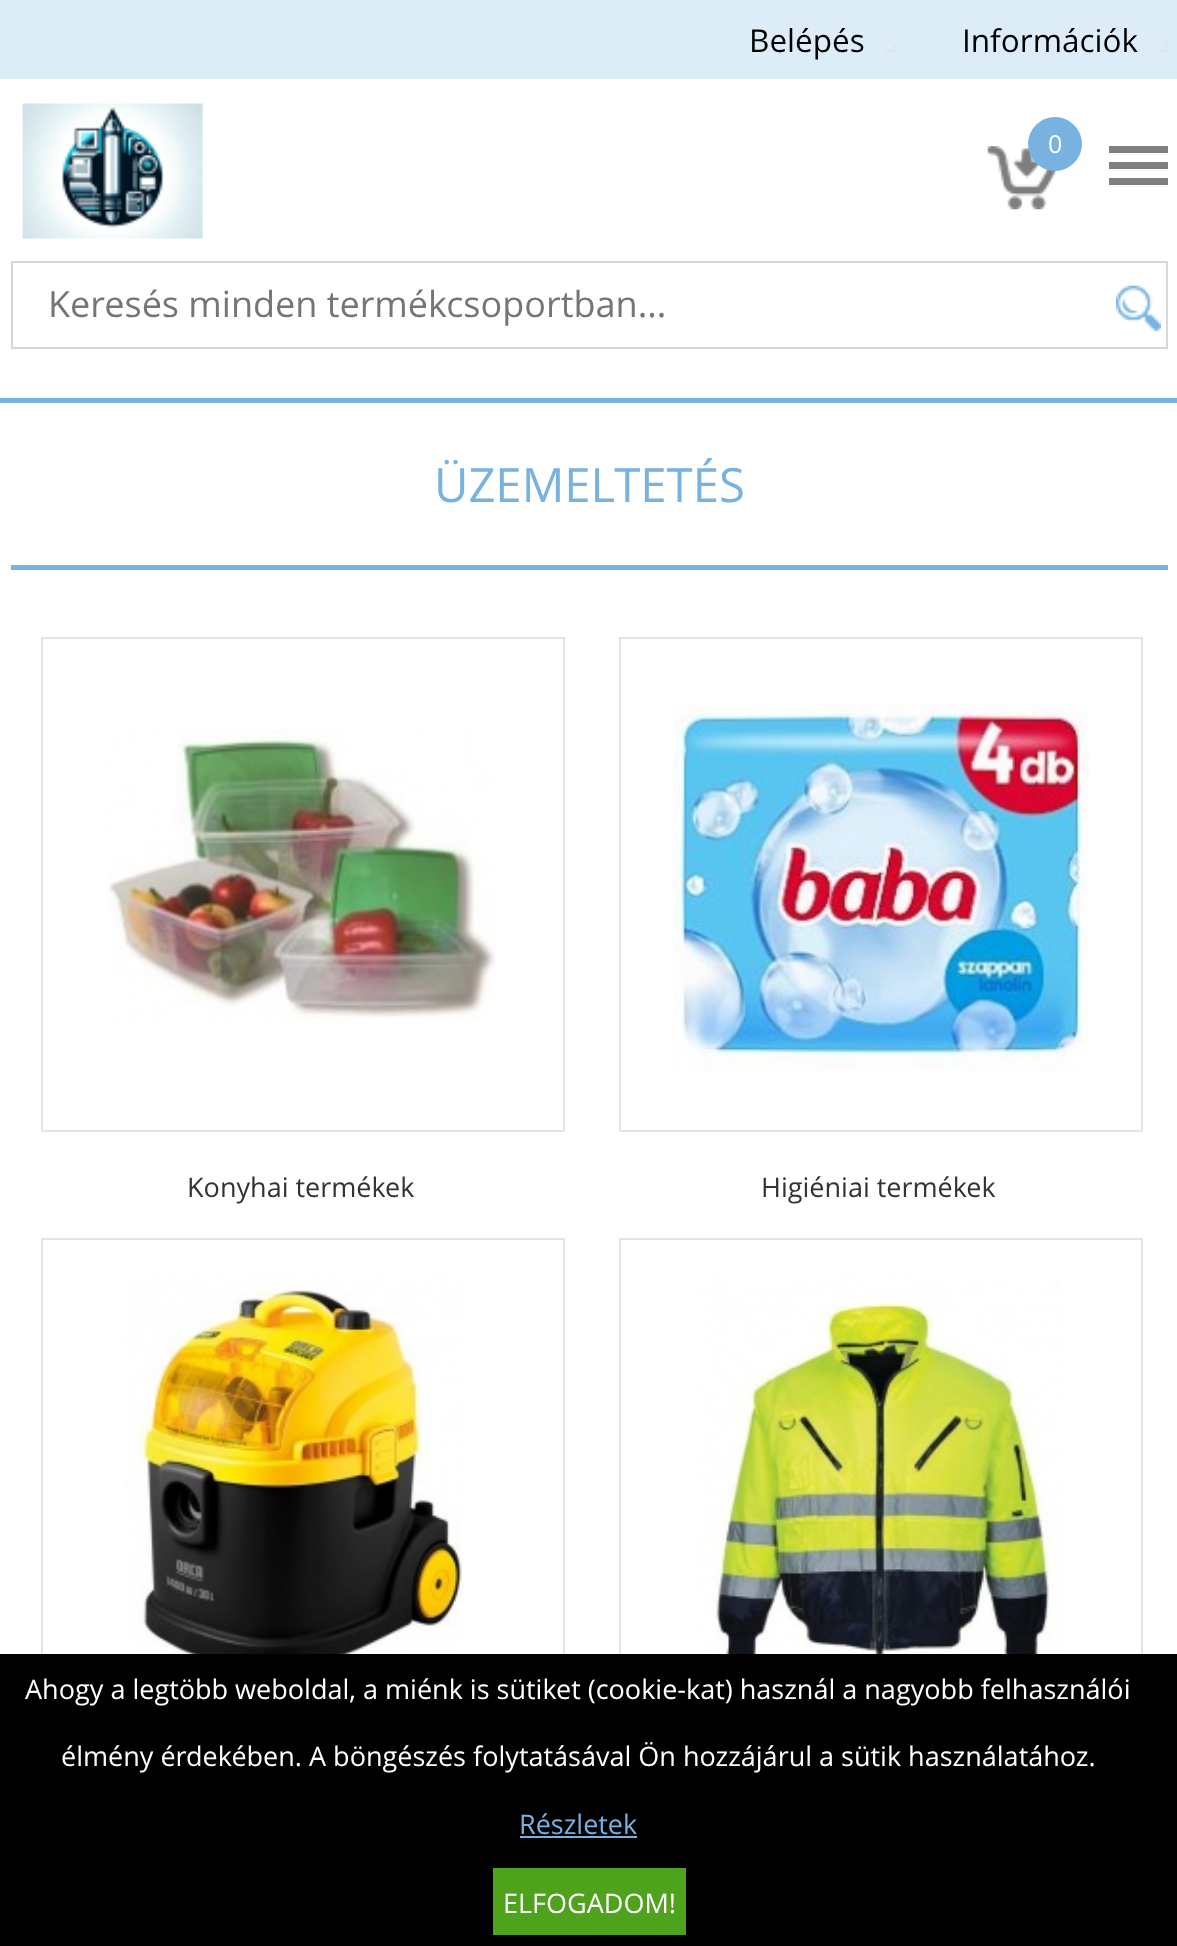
<svg xmlns="http://www.w3.org/2000/svg" width="1177" height="1946">
<rect width="100%" height="100%" fill="#fff"/>
<rect width="1177" height="79" fill="#ddedf8"/>
<text x="749" y="52" style="font-family:Open Sans;font-size:31.5px;fill:#000">Belépés</text>
<image x="884" y="43" width="12" height="9" href="media/1.png"/>
<text x="962" y="52" style="font-family:Open Sans;font-size:31.5px;fill:#000">Információk</text>
<image x="1155" y="42" width="13" height="10" href="media/2.png"/>
<rect y="398" width="1177" height="5" fill="#77b2e0"/>
<image x="22" y="103" width="181" height="136" href="media/3.png"/>
<image x="987" y="146" width="69" height="64" href="media/4.png"/>
<circle cx="1055" cy="144" r="27" fill="#77b2e0"/>
<text x="1048" y="153" style="font-family:Open Sans;font-size:25px;fill:#fff">0</text>
<rect x="1109" y="146" width="59" height="7" fill="#808080"/>
<rect x="1109" y="162" width="59" height="7" fill="#808080"/>
<rect x="1109" y="178" width="59" height="7" fill="#808080"/>
<rect x="12" y="262" width="1155" height="86" fill="none" stroke="#d7d7d7" stroke-width="2"/>
<text x="48" y="317" style="font-family:Open Sans;font-size:36px;fill:#757575">Keresés minden termékcsoportban...</text>
<image x="1116" y="285" width="45" height="46" href="media/5.png"/>
<rect x="11" y="565" width="1157" height="5" fill="#77b2e0"/>
<text x="434" y="502" style="font-family:Open Sans;font-size:47.25px;fill:#77b2e0">ÜZEMELTETÉS</text>
<rect x="42" y="638" width="522" height="493" fill="none" stroke="#e4e4e4" stroke-width="2"/>
<image x="106" y="727" width="391" height="293" href="media/6.png"/>
<text x="187" y="1197" style="font-family:Open Sans;font-size:27px;fill:#333">Konyhai termékek</text>
<rect x="620" y="638" width="522" height="493" fill="none" stroke="#e4e4e4" stroke-width="2"/>
<image x="673" y="704" width="416" height="370" href="media/7.png"/>
<text x="761" y="1197" style="font-family:Open Sans;font-size:27px;fill:#333">Higiéniai termékek</text>
<rect x="42" y="1239" width="522" height="493" fill="none" stroke="#e4e4e4" stroke-width="2"/>
<image x="125" y="1276" width="338" height="378" href="media/8.png"/>
<rect x="620" y="1239" width="522" height="493" fill="none" stroke="#e4e4e4" stroke-width="2"/>
<image x="700" y="1276" width="362" height="378" href="media/9.png"/>
<rect y="1654" width="1177" height="292" fill="#000"/>
<text x="25" y="1699" style="font-family:Open Sans;font-size:27px;fill:#fff">Ahogy a legtöbb weboldal, a miénk is sütiket (cookie-kat) használ a nagyobb felhasználói</text>
<text x="61" y="1766" style="font-family:Open Sans;font-size:27px;fill:#fff">élmény érdekében. A böngészés folytatásával Ön hozzájárul a sütik használatához.</text>
<text x="519" y="1834" style="font-family:Open Sans;font-size:27px;fill:#77b2e0">Részletek</text>
<rect x="520" y="1836" width="117" height="2" fill="#77b2e0"/>
<rect x="493" y="1868" width="193" height="67" fill="#4fa31c"/>
<text x="503" y="1913" style="font-family:Open Sans;font-size:27px;fill:#fff">ELFOGADOM!</text>
</svg>
